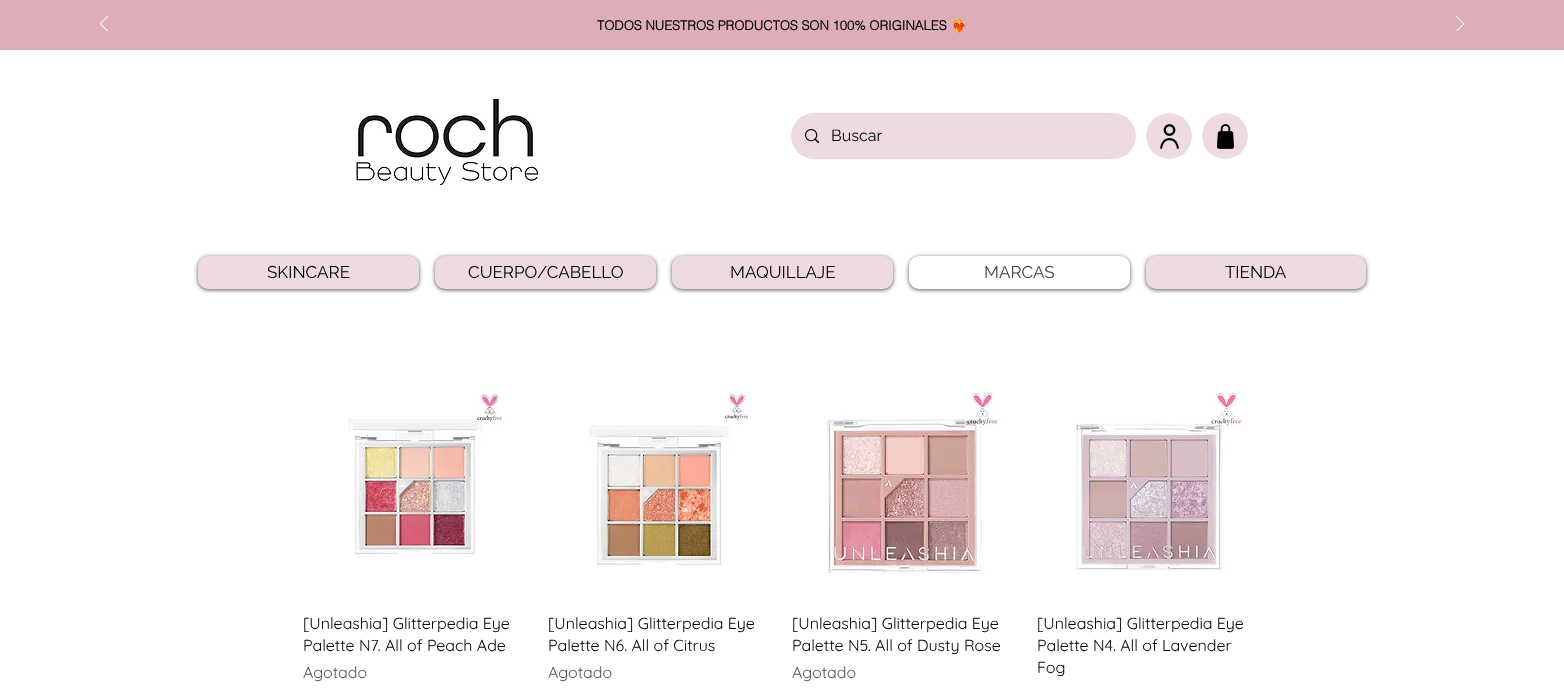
<svg xmlns="http://www.w3.org/2000/svg" width="1564" height="688">
<rect width="100%" height="100%" fill="#fff"/>
<rect width="1564" height="50" fill="#ddaeb8"/>
<image x="100" y="16" width="8" height="15" href="media/1.png"/>
<text x="597" y="30" style="font-family:helvetica;font-size:13px;font-weight:bold;fill:#000">TODOS NUESTROS PRODUCTOS SON 100% ORIGINALES</text>
<text x="951" y="30" style="font-family:Noto Color Emoji;font-size:13px;font-weight:bold;fill:#000">❤️‍🔥</text>
<image x="1456" y="16" width="8" height="15" href="media/2.png"/>
<image x="356" y="98" width="183" height="88" href="media/3.png"/>
<rect x="791" y="113" width="345" height="46" rx="23" fill="#eedbdf"/>
<image x="805" y="129" width="14" height="14" href="media/4.png"/>
<text x="831" y="141" style="font-family:Raleway;font-size:16px;fill:#000">Buscar</text>
<circle cx="1169" cy="136" r="23" fill="#eedbdf"/>
<image x="1160" y="124" width="19" height="25" href="media/5.png"/>
<circle cx="1225" cy="136" r="23" fill="#eedbdf"/>
<image x="1217" y="124" width="17" height="25" href="media/6.png"/>
<rect x="198" y="257" width="221" height="33" rx="10" fill="#555" filter="blur(2px)"/>
<rect x="198" y="256" width="221" height="33" rx="10" fill="#eedbdf"/>
<text x="267" y="278" style="font-family:'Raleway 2';font-size:17px;fill:#000">SKINCARE</text>
<rect x="435" y="257" width="221" height="33" rx="10" fill="#555" filter="blur(2px)"/>
<rect x="435" y="256" width="221" height="33" rx="10" fill="#eedbdf"/>
<text x="468" y="278" style="font-family:'Raleway 2';font-size:17px;fill:#000">CUERPO/CABELLO</text>
<rect x="672" y="257" width="221" height="33" rx="10" fill="#555" filter="blur(2px)"/>
<rect x="672" y="256" width="221" height="33" rx="10" fill="#eedbdf"/>
<text x="730" y="278" style="font-family:'Raleway 2';font-size:17px;fill:#000">MAQUILLAJE</text>
<rect x="909" y="257" width="221" height="33" rx="10" fill="#555" filter="blur(2px)"/>
<rect x="909" y="256" width="221" height="33" rx="10" fill="#fff"/>
<text x="984" y="278" style="font-family:'Raleway 2';font-size:17px;fill:#444">MARCAS</text>
<rect x="1146" y="257" width="220" height="33" rx="10" fill="#555" filter="blur(2px)"/>
<rect x="1146" y="256" width="220" height="33" rx="10" fill="#eedbdf"/>
<text x="1225" y="278" style="font-family:'Raleway 2';font-size:17px;fill:#000">TIENDA</text>
<image x="348" y="391" width="155" height="164" href="media/7.png"/>
<text x="303" y="629" style="font-family:Quicksand;font-size:16px;fill:#000">[Unleashia] Glitterpedia Eye</text>
<text x="303" y="651" style="font-family:Quicksand;font-size:16px;fill:#000">Palette N7. All of Peach Ade</text>
<text x="303" y="678" style="font-family:Quicksand;font-size:16px;fill:#555">Agotado</text>
<image x="590" y="391" width="161" height="176" href="media/8.png"/>
<text x="548" y="629" style="font-family:Quicksand;font-size:16px;fill:#000">[Unleashia] Glitterpedia Eye</text>
<text x="548" y="651" style="font-family:Quicksand;font-size:16px;fill:#000">Palette N6. All of Citrus</text>
<text x="548" y="678" style="font-family:Quicksand;font-size:16px;fill:#555">Agotado</text>
<image x="824" y="391" width="175" height="184" href="media/9.png"/>
<text x="792" y="629" style="font-family:Quicksand;font-size:16px;fill:#000">[Unleashia] Glitterpedia Eye</text>
<text x="792" y="651" style="font-family:Quicksand;font-size:16px;fill:#000">Palette N5. All of Dusty Rose</text>
<text x="792" y="678" style="font-family:Quicksand;font-size:16px;fill:#555">Agotado</text>
<image x="1076" y="391" width="168" height="180" href="media/10.png"/>
<text x="1037" y="629" style="font-family:Quicksand;font-size:16px;fill:#000">[Unleashia] Glitterpedia Eye</text>
<text x="1037" y="651" style="font-family:Quicksand;font-size:16px;fill:#000">Palette N4. All of Lavender</text>
<text x="1037" y="673" style="font-family:Quicksand;font-size:16px;fill:#000">Fog</text>
</svg>
